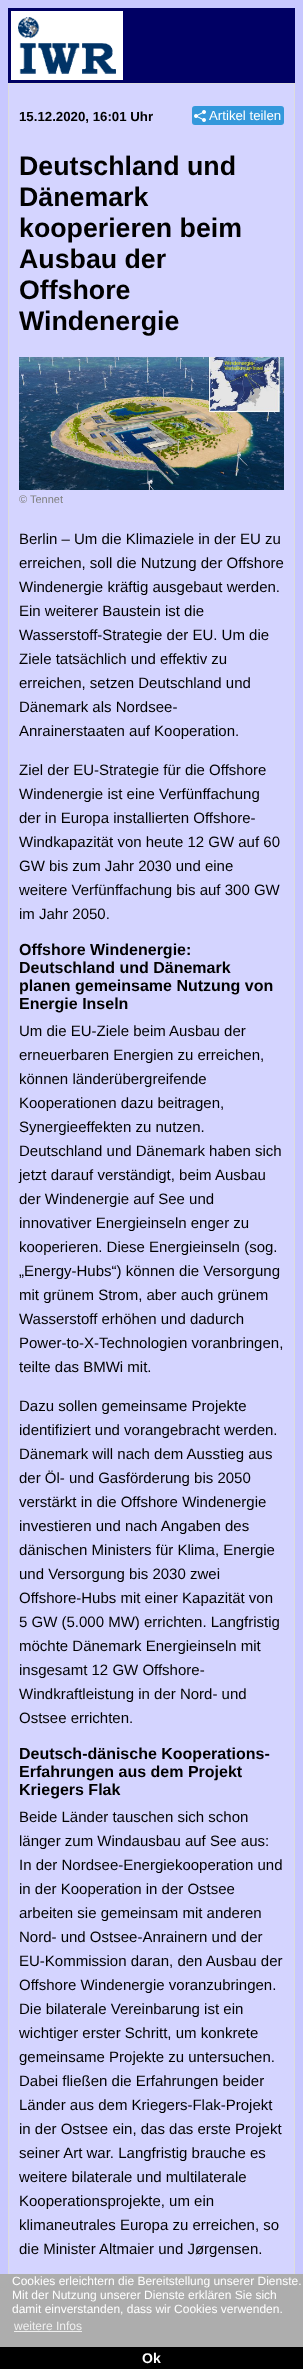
<svg xmlns="http://www.w3.org/2000/svg" width="303" height="2369">
<rect width="100%" height="100%" fill="#c8c8ff"/>
<rect x="8" y="8" width="287" height="75" fill="#000064"/>
<image x="11" y="11" width="112" height="69" href="media/1.png"/>
<rect x="9" y="84" width="285" height="2190" fill="#d4d4ff"/>
<rect x="8" y="83" width="287" height="1" fill="#ddd"/>
<rect x="294" y="83" width="1" height="2191" fill="#ddd"/>
<rect x="8" y="83" width="1" height="2191" fill="#ddd"/>
<text x="19" y="121" style="font-family:Liberation Sans;font-size:13.25px;font-weight:bold;fill:#000">15.12.2020, 16:01 Uhr</text>
<rect x="192" y="106" width="92" height="19" rx="3" fill="#3498db"/>
<image x="194" y="110" width="12" height="12" href="media/2.png"/>
<text x="209" y="120" style="font-family:Liberation Sans;font-size:13.25px;fill:#fff">Artikel teilen</text>
<text x="19" y="175" style="font-family:Liberation Sans;font-size:26.75px;font-weight:bold;fill:#000">Deutschland und</text>
<text x="19" y="206" style="font-family:Liberation Sans;font-size:26.75px;font-weight:bold;fill:#000">Dänemark</text>
<text x="19" y="237" style="font-family:Liberation Sans;font-size:26.75px;font-weight:bold;fill:#000">kooperieren beim</text>
<text x="19" y="268" style="font-family:Liberation Sans;font-size:26.75px;font-weight:bold;fill:#000">Ausbau der</text>
<text x="19" y="299" style="font-family:Liberation Sans;font-size:26.75px;font-weight:bold;fill:#000">Offshore</text>
<text x="19" y="330" style="font-family:Liberation Sans;font-size:26.75px;font-weight:bold;fill:#000">Windenergie</text>
<image x="19" y="357" width="265" height="133" href="media/3.png"/>
<text x="19" y="503" style="font-family:Liberation Sans;font-size:11px;fill:#808080">© Tennet</text>
<text x="19" y="544" style="font-family:Liberation Sans;font-size:15px;fill:#000">Berlin – Um die Klimaziele in der EU zu</text>
<text x="19" y="568" style="font-family:Liberation Sans;font-size:15px;fill:#000">erreichen, soll die Nutzung der Offshore</text>
<text x="19" y="592" style="font-family:Liberation Sans;font-size:15px;fill:#000">Windenergie kräftig ausgebaut werden.</text>
<text x="19" y="616" style="font-family:Liberation Sans;font-size:15px;fill:#000">Ein weiterer Baustein ist die</text>
<text x="19" y="640" style="font-family:Liberation Sans;font-size:15px;fill:#000">Wasserstoff-Strategie der EU. Um die</text>
<text x="19" y="664" style="font-family:Liberation Sans;font-size:15px;fill:#000">Ziele tatsächlich und effektiv zu</text>
<text x="19" y="688" style="font-family:Liberation Sans;font-size:15px;fill:#000">erreichen, setzen Deutschland und</text>
<text x="19" y="712" style="font-family:Liberation Sans;font-size:15px;fill:#000">Dänemark als Nordsee-</text>
<text x="19" y="736" style="font-family:Liberation Sans;font-size:15px;fill:#000">Anrainerstaaten auf Kooperation.</text>
<text x="19" y="775" style="font-family:Liberation Sans;font-size:15px;fill:#000">Ziel der EU-Strategie für die Offshore</text>
<text x="19" y="799" style="font-family:Liberation Sans;font-size:15px;fill:#000">Windenergie ist eine Verfünffachung</text>
<text x="19" y="823" style="font-family:Liberation Sans;font-size:15px;fill:#000">der in Europa installierten Offshore-</text>
<text x="19" y="847" style="font-family:Liberation Sans;font-size:15px;fill:#000">Windkapazität von heute 12 GW auf 60</text>
<text x="19" y="871" style="font-family:Liberation Sans;font-size:15px;fill:#000">GW bis zum Jahr 2030 und eine</text>
<text x="19" y="895" style="font-family:Liberation Sans;font-size:15px;fill:#000">weitere Verfünffachung bis auf 300 GW</text>
<text x="19" y="919" style="font-family:Liberation Sans;font-size:15px;fill:#000">im Jahr 2050.</text>
<text x="19" y="955" style="font-family:Liberation Sans;font-size:16px;font-weight:bold;fill:#000">Offshore Windenergie:</text>
<text x="19" y="973" style="font-family:Liberation Sans;font-size:16px;font-weight:bold;fill:#000">Deutschland und Dänemark</text>
<text x="19" y="991" style="font-family:Liberation Sans;font-size:16px;font-weight:bold;fill:#000">planen gemeinsame Nutzung von</text>
<text x="19" y="1009" style="font-family:Liberation Sans;font-size:16px;font-weight:bold;fill:#000">Energie Inseln</text>
<text x="19" y="1036" style="font-family:Liberation Sans;font-size:15px;fill:#000">Um die EU-Ziele beim Ausbau der</text>
<text x="19" y="1060" style="font-family:Liberation Sans;font-size:15px;fill:#000">erneuerbaren Energien zu erreichen,</text>
<text x="19" y="1084" style="font-family:Liberation Sans;font-size:15px;fill:#000">können länderübergreifende</text>
<text x="19" y="1108" style="font-family:Liberation Sans;font-size:15px;fill:#000">Kooperationen dazu beitragen,</text>
<text x="19" y="1132" style="font-family:Liberation Sans;font-size:15px;fill:#000">Synergieeffekten zu nutzen.</text>
<text x="19" y="1156" style="font-family:Liberation Sans;font-size:15px;fill:#000">Deutschland und Dänemark haben sich</text>
<text x="19" y="1180" style="font-family:Liberation Sans;font-size:15px;fill:#000">jetzt darauf verständigt, beim Ausbau</text>
<text x="19" y="1204" style="font-family:Liberation Sans;font-size:15px;fill:#000">der Windenergie auf See und</text>
<text x="19" y="1228" style="font-family:Liberation Sans;font-size:15px;fill:#000">innovativer Energieinseln enger zu</text>
<text x="19" y="1252" style="font-family:Liberation Sans;font-size:15px;fill:#000">kooperieren. Diese Energieinseln (sog.</text>
<text x="19" y="1276" style="font-family:Liberation Sans;font-size:15px;fill:#000">„Energy-Hubs“) können die Versorgung</text>
<text x="19" y="1300" style="font-family:Liberation Sans;font-size:15px;fill:#000">mit grünem Strom, aber auch grünem</text>
<text x="19" y="1324" style="font-family:Liberation Sans;font-size:15px;fill:#000">Wasserstoff erhöhen und dadurch</text>
<text x="19" y="1348" style="font-family:Liberation Sans;font-size:15px;fill:#000">Power-to-X-Technologien voranbringen,</text>
<text x="19" y="1372" style="font-family:Liberation Sans;font-size:15px;fill:#000">teilte das BMWi mit.</text>
<text x="19" y="1411" style="font-family:Liberation Sans;font-size:15px;fill:#000">Dazu sollen gemeinsame Projekte</text>
<text x="19" y="1435" style="font-family:Liberation Sans;font-size:15px;fill:#000">identifiziert und vorangebracht werden.</text>
<text x="19" y="1459" style="font-family:Liberation Sans;font-size:15px;fill:#000">Dänemark will nach dem Ausstieg aus</text>
<text x="19" y="1483" style="font-family:Liberation Sans;font-size:15px;fill:#000">der Öl- und Gasförderung bis 2050</text>
<text x="19" y="1507" style="font-family:Liberation Sans;font-size:15px;fill:#000">verstärkt in die Offshore Windenergie</text>
<text x="19" y="1531" style="font-family:Liberation Sans;font-size:15px;fill:#000">investieren und nach Angaben des</text>
<text x="19" y="1555" style="font-family:Liberation Sans;font-size:15px;fill:#000">dänischen Ministers für Klima, Energie</text>
<text x="19" y="1579" style="font-family:Liberation Sans;font-size:15px;fill:#000">und Versorgung bis 2030 zwei</text>
<text x="19" y="1603" style="font-family:Liberation Sans;font-size:15px;fill:#000">Offshore-Hubs mit einer Kapazität von</text>
<text x="19" y="1627" style="font-family:Liberation Sans;font-size:15px;fill:#000">5 GW (5.000 MW) errichten. Langfristig</text>
<text x="19" y="1651" style="font-family:Liberation Sans;font-size:15px;fill:#000">möchte Dänemark Energieinseln mit</text>
<text x="19" y="1675" style="font-family:Liberation Sans;font-size:15px;fill:#000">insgesamt 12 GW Offshore-</text>
<text x="19" y="1699" style="font-family:Liberation Sans;font-size:15px;fill:#000">Windkraftleistung in der Nord- und</text>
<text x="19" y="1723" style="font-family:Liberation Sans;font-size:15px;fill:#000">Ostsee errichten.</text>
<text x="19" y="1759" style="font-family:Liberation Sans;font-size:16px;font-weight:bold;fill:#000">Deutsch-dänische Kooperations-</text>
<text x="19" y="1777" style="font-family:Liberation Sans;font-size:16px;font-weight:bold;fill:#000">Erfahrungen aus dem Projekt</text>
<text x="19" y="1795" style="font-family:Liberation Sans;font-size:16px;font-weight:bold;fill:#000">Kriegers Flak</text>
<text x="19" y="1822" style="font-family:Liberation Sans;font-size:15px;fill:#000">Beide Länder tauschen sich schon</text>
<text x="19" y="1846" style="font-family:Liberation Sans;font-size:15px;fill:#000">länger zum Windausbau auf See aus:</text>
<text x="19" y="1870" style="font-family:Liberation Sans;font-size:15px;fill:#000">In der Nordsee-Energiekooperation und</text>
<text x="19" y="1894" style="font-family:Liberation Sans;font-size:15px;fill:#000">in der Kooperation in der Ostsee</text>
<text x="19" y="1918" style="font-family:Liberation Sans;font-size:15px;fill:#000">arbeiten sie gemeinsam mit anderen</text>
<text x="19" y="1942" style="font-family:Liberation Sans;font-size:15px;fill:#000">Nord- und Ostsee-Anrainern und der</text>
<text x="19" y="1966" style="font-family:Liberation Sans;font-size:15px;fill:#000">EU-Kommission daran, den Ausbau der</text>
<text x="19" y="1990" style="font-family:Liberation Sans;font-size:15px;fill:#000">Offshore Windenergie voranzubringen.</text>
<text x="19" y="2014" style="font-family:Liberation Sans;font-size:15px;fill:#000">Die bilaterale Vereinbarung ist ein</text>
<text x="19" y="2038" style="font-family:Liberation Sans;font-size:15px;fill:#000">wichtiger erster Schritt, um konkrete</text>
<text x="19" y="2062" style="font-family:Liberation Sans;font-size:15px;fill:#000">gemeinsame Projekte zu untersuchen.</text>
<text x="19" y="2086" style="font-family:Liberation Sans;font-size:15px;fill:#000">Dabei fließen die Erfahrungen beider</text>
<text x="19" y="2110" style="font-family:Liberation Sans;font-size:15px;fill:#000">Länder aus dem Kriegers-Flak-Projekt</text>
<text x="19" y="2134" style="font-family:Liberation Sans;font-size:15px;fill:#000">in der Ostsee ein, das das erste Projekt</text>
<text x="19" y="2158" style="font-family:Liberation Sans;font-size:15px;fill:#000">seiner Art war. Langfristig brauche es</text>
<text x="19" y="2182" style="font-family:Liberation Sans;font-size:15px;fill:#000">weitere bilaterale und multilaterale</text>
<text x="19" y="2206" style="font-family:Liberation Sans;font-size:15px;fill:#000">Kooperationsprojekte, um ein</text>
<text x="19" y="2230" style="font-family:Liberation Sans;font-size:15px;fill:#000">klimaneutrales Europa zu erreichen, so</text>
<text x="19" y="2254" style="font-family:Liberation Sans;font-size:15px;fill:#000">die Minister Altmaier und Jørgensen.</text>
<rect y="2274" width="303" height="73" fill="#adadad"/>
<text x="12" y="2285" style="font-family:Liberation Sans;font-size:12px;fill:#fff">Cookies erleichtern die Bereitstellung unserer Dienste.</text>
<text x="12" y="2299" style="font-family:Liberation Sans;font-size:12px;fill:#fff">Mit der Nutzung unserer Dienste erklären Sie sich</text>
<text x="12" y="2313" style="font-family:Liberation Sans;font-size:12px;fill:#fff">damit einverstanden, dass wir Cookies verwenden.</text>
<text x="14" y="2330" style="font-family:Liberation Sans;font-size:12px;fill:#efefef">weitere Infos</text>
<rect x="14" y="2331" width="68" height="1" fill="#efefef"/>
<rect y="2347" width="303" height="22" fill="#000"/>
<text x="142" y="2363" style="font-family:Liberation Sans;font-size:14px;font-weight:bold;fill:#fff">Ok</text>
</svg>
